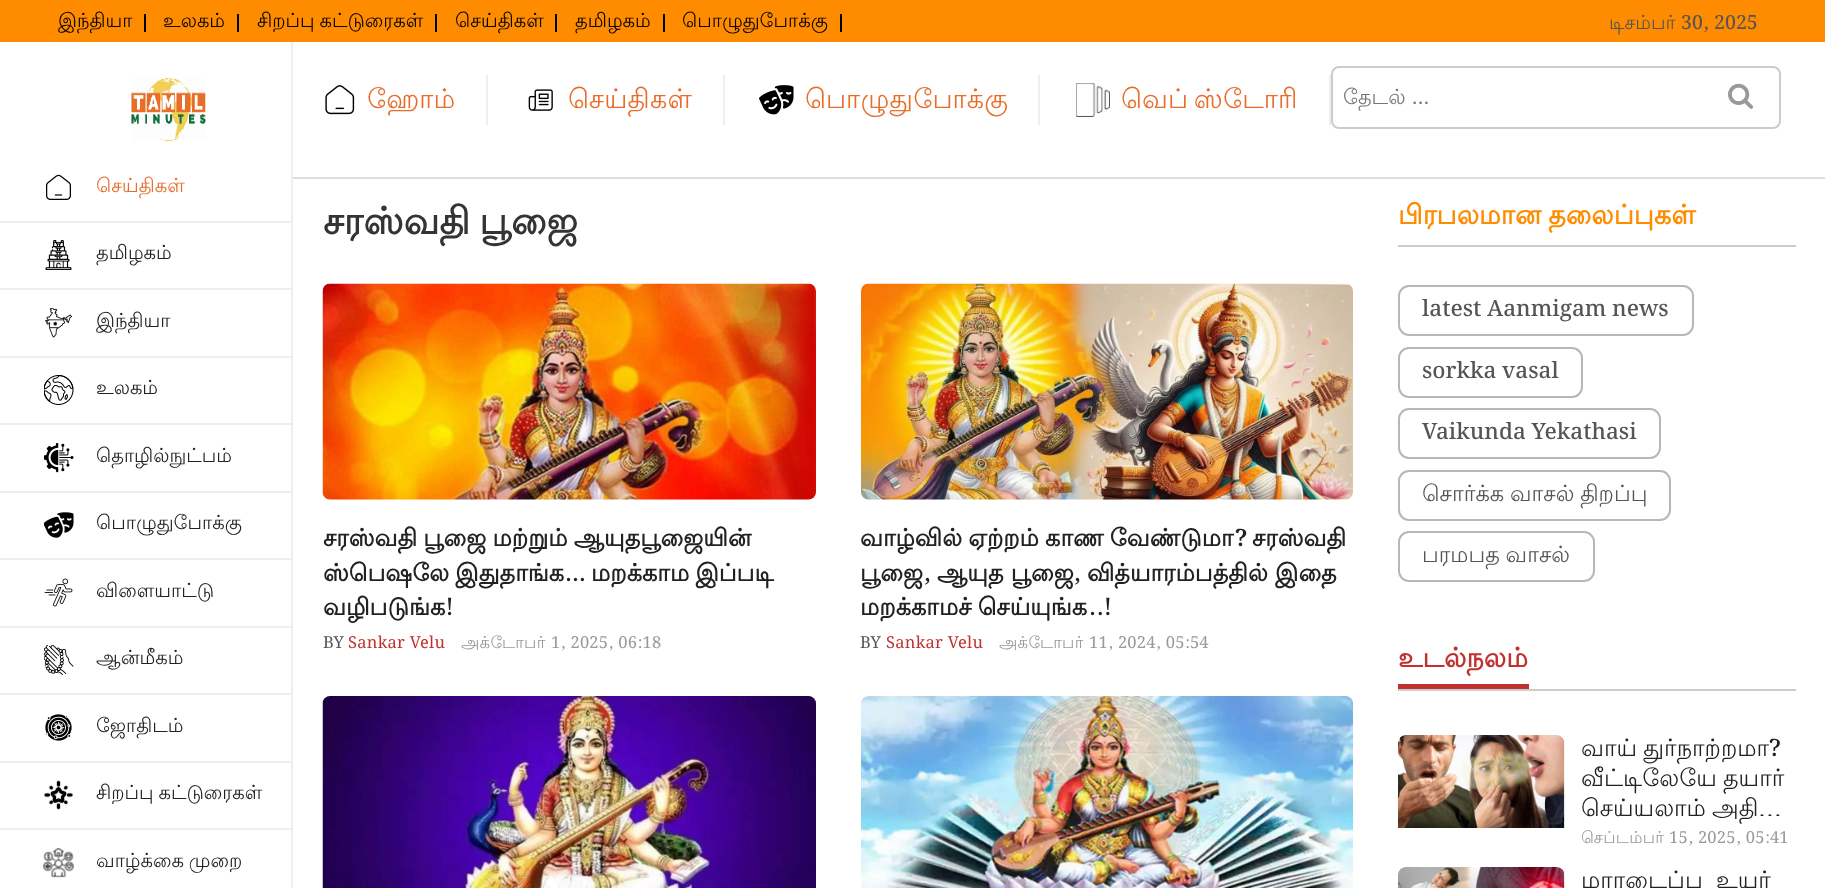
<svg xmlns="http://www.w3.org/2000/svg" width="1825" height="888">
<rect width="100%" height="100%" fill="#fff"/>
<rect width="1825" height="42" fill="#ff8c00"/>
<rect x="144" y="14" width="2" height="18" fill="#000"/>
<text x="58" y="27" style="font-family:Lohit Tamil;font-size:19.5px;fill:#000">இந்தியா</text>
<rect x="237" y="14" width="2" height="18" fill="#000"/>
<text x="163" y="27" style="font-family:Lohit Tamil;font-size:19.5px;fill:#000">உலகம்</text>
<rect x="435" y="14" width="2" height="18" fill="#000"/>
<text x="257" y="27" word-spacing="-1" style="font-family:Lohit Tamil;font-size:19.5px;fill:#000">சிறப்பு கட்டுரைகள்</text>
<rect x="555" y="14" width="2" height="18" fill="#000"/>
<text x="455" y="27" style="font-family:Lohit Tamil;font-size:19.5px;fill:#000">செய்திகள்</text>
<rect x="663" y="14" width="2" height="18" fill="#000"/>
<text x="575" y="27" style="font-family:Lohit Tamil;font-size:19.5px;fill:#000">தமிழகம்</text>
<rect x="840" y="14" width="2" height="18" fill="#000"/>
<text x="682" y="27" style="font-family:Lohit Tamil;font-size:19.5px;fill:#000">பொழுதுபோக்கு</text>
<text x="1609" y="29" style="font-family:Lohit Tamil;font-size:19.5px;fill:#555">டிசம்பர்</text>
<text x="1681" y="29" style="font-family:Noto Serif Bengali;font-size:19.5px;font-weight:500;fill:#555">30, 2025</text>
<rect x="293" y="177" width="1532" height="2" fill="#ddd"/>
<rect x="291" y="42" width="2" height="846" fill="#eee"/>
<image x="131" y="78" width="75" height="63" href="media/1.png"/>
<rect x="486" y="75" width="2" height="50" fill="#eee"/>
<image x="325" y="85" width="30" height="30" href="media/2.png"/>
<text x="367" y="108" style="font-family:Lohit Tamil;font-size:27px;letter-spacing:0.25px;fill:#e96c29">ஹோம்</text>
<rect x="723" y="75" width="2" height="50" fill="#eee"/>
<image x="528" y="89" width="25" height="22" href="media/3.png"/>
<text x="568" y="108" style="font-family:Lohit Tamil;font-size:27px;letter-spacing:0.25px;fill:#e96c29">செய்திகள்</text>
<rect x="1038" y="75" width="2" height="50" fill="#eee"/>
<image x="759" y="85" width="35" height="30" href="media/4.png"/>
<text x="805" y="108" style="font-family:Lohit Tamil;font-size:27px;letter-spacing:0.25px;fill:#e96c29">பொழுதுபோக்கு</text>
<rect x="1329" y="75" width="2" height="50" fill="#eee"/>
<image x="1076" y="83" width="34" height="34" href="media/5.png"/>
<text x="1121" y="108" word-spacing="-3" style="font-family:Lohit Tamil;font-size:27px;letter-spacing:0.25px;fill:#e96c29">வெப் ஸ்டோரி</text>
<rect x="1332" y="67" width="448" height="61" rx="7" fill="none" stroke="#ccc" stroke-width="2"/>
<text x="1343" y="104" style="font-family:Lohit Tamil;font-size:21px;fill:#757575">தேடல்</text>
<text x="1411" y="104" style="font-family:Noto Serif Bengali;font-size:21px;fill:#757575">…</text>
<image x="1728" y="83" width="25" height="26" href="media/6.png"/>
<rect y="221" width="291" height="2" fill="#ededed"/>
<image x="46" y="174" width="25" height="26" href="media/7.png"/>
<text x="96" y="192" style="font-family:Lohit Tamil;font-size:19.5px;fill:#e96c29">செய்திகள்</text>
<rect y="288" width="291" height="2" fill="#ededed"/>
<image x="45" y="240" width="27" height="30" href="media/8.png"/>
<text x="96" y="259" style="font-family:Lohit Tamil;font-size:19.5px;fill:#222">தமிழகம்</text>
<rect y="356" width="291" height="2" fill="#ededed"/>
<image x="45" y="308" width="27" height="30" href="media/9.png"/>
<text x="96" y="327" style="font-family:Lohit Tamil;font-size:19.5px;fill:#222">இந்தியா</text>
<rect y="423" width="291" height="2" fill="#ededed"/>
<image x="44" y="375" width="30" height="30" href="media/10.png"/>
<text x="96" y="394" style="font-family:Lohit Tamil;font-size:19.5px;fill:#222">உலகம்</text>
<rect y="491" width="291" height="2" fill="#ededed"/>
<image x="44" y="443" width="30" height="30" href="media/11.png"/>
<text x="96" y="462" style="font-family:Lohit Tamil;font-size:19.5px;fill:#222">தொழில்நுட்பம்</text>
<rect y="558" width="291" height="2" fill="#ededed"/>
<image x="44" y="512" width="30" height="26" href="media/12.png"/>
<text x="96" y="529" style="font-family:Lohit Tamil;font-size:19.5px;fill:#222">பொழுதுபோக்கு</text>
<rect y="626" width="291" height="2" fill="#ededed"/>
<image x="44" y="578" width="29" height="29" href="media/13.png"/>
<text x="96" y="597" style="font-family:Lohit Tamil;font-size:19.5px;fill:#222">விளையாட்டு</text>
<rect y="693" width="291" height="2" fill="#ededed"/>
<image x="44" y="645" width="30" height="30" href="media/14.png"/>
<text x="96" y="664" style="font-family:Lohit Tamil;font-size:19.5px;fill:#222">ஆன்மீகம்</text>
<rect y="761" width="291" height="2" fill="#ededed"/>
<image x="45" y="714" width="27" height="27" href="media/15.png"/>
<text x="96" y="732" style="font-family:Lohit Tamil;font-size:19.5px;fill:#222">ஜோதிடம்</text>
<rect y="828" width="291" height="2" fill="#ededed"/>
<image x="44" y="780" width="30" height="30" href="media/16.png"/>
<text x="96" y="799" word-spacing="-1" style="font-family:Lohit Tamil;font-size:19.5px;fill:#222">சிறப்பு கட்டுரைகள்</text>
<image x="43" y="848" width="31" height="30" href="media/17.png"/>
<text x="96" y="867" word-spacing="-1" style="font-family:Lohit Tamil;font-size:19.5px;fill:#222">வாழ்க்கை முறை</text>
<text x="323" y="234" word-spacing="-2" style="font-family:Lohit Tamil;font-size:37.5px;font-weight:bold;fill:#343434">சரஸ்வதி பூஜை</text>
<image x="322" y="283" width="494" height="217" href="media/18.png"/>
<text x="323" y="546" word-spacing="-1" style="font-family:Lohit Tamil;font-size:24px;font-weight:bold;fill:#222">சரஸ்வதி பூஜை மற்றும் ஆயுதபூஜையின்</text>
<text x="323" y="581" word-spacing="-1" style="font-family:Lohit Tamil;font-size:24px;font-weight:bold;fill:#222">ஸ்பெஷலே இதுதாங்க</text>
<text x="564" y="581" style="font-family:Noto Serif Bengali;font-size:24px;font-weight:600;fill:#222">…</text>
<text x="591" y="581" word-spacing="-1" style="font-family:Lohit Tamil;font-size:24px;font-weight:bold;fill:#222">மறக்காம இப்படி</text>
<text x="323" y="615" style="font-family:Lohit Tamil;font-size:24px;font-weight:bold;fill:#222">வழிபடுங்க</text>
<text x="445" y="615" style="font-family:Noto Serif Bengali;font-size:24px;font-weight:600;fill:#222">!</text>
<text x="323" y="648" style="font-family:Noto Serif Bengali;font-size:16.5px;letter-spacing:0.25px;fill:#555">BY</text>
<text x="348" y="648" style="font-family:Noto Serif Bengali;font-size:16.5px;letter-spacing:0.25px;fill:#c0312f">Sankar Velu</text>
<text x="461" y="648" style="font-family:Lohit Tamil;font-size:16.5px;letter-spacing:0.25px;fill:#999">அக்டோபர்</text>
<text x="551" y="648" style="font-family:Noto Serif Bengali;font-size:16.5px;letter-spacing:0.25px;fill:#999">1, 2025, 06:18</text>
<image x="861" y="283" width="492" height="217" href="media/19.png"/>
<text x="860" y="546" word-spacing="-1" style="font-family:Lohit Tamil;font-size:24px;font-weight:bold;fill:#222">வாழ்வில் ஏற்றம் காண வேண்டுமா</text>
<text x="1235" y="546" style="font-family:Noto Serif Bengali;font-size:24px;font-weight:600;fill:#222">?</text>
<text x="1252" y="546" style="font-family:Lohit Tamil;font-size:24px;font-weight:bold;fill:#222">சரஸ்வதி</text>
<text x="860" y="581" style="font-family:Lohit Tamil;font-size:24px;font-weight:bold;fill:#222">பூஜை</text>
<text x="923" y="581" style="font-family:Noto Serif Bengali;font-size:24px;font-weight:600;fill:#222">,</text>
<text x="937" y="581" style="font-family:Lohit Tamil;font-size:24px;font-weight:bold;fill:#222">ஆயுத பூஜை</text>
<text x="1073" y="581" style="font-family:Noto Serif Bengali;font-size:24px;font-weight:600;fill:#222">,</text>
<text x="1087" y="581" style="font-family:Lohit Tamil;font-size:24px;font-weight:bold;fill:#222">வித்யாரம்பத்தில் இதை</text>
<text x="860" y="615" word-spacing="-1" style="font-family:Lohit Tamil;font-size:24px;font-weight:bold;fill:#222">மறக்காமச் செய்யுங்க</text>
<text x="1088" y="615" style="font-family:Noto Serif Bengali;font-size:24px;font-weight:600;fill:#222">..!</text>
<text x="860" y="648" style="font-family:Noto Serif Bengali;font-size:16.5px;letter-spacing:0.25px;fill:#555">BY</text>
<text x="886" y="648" style="font-family:Noto Serif Bengali;font-size:16.5px;letter-spacing:0.25px;fill:#c0312f">Sankar Velu</text>
<text x="999" y="648" style="font-family:Lohit Tamil;font-size:16.5px;letter-spacing:0.25px;fill:#999">அக்டோபர்</text>
<text x="1089" y="648" style="font-family:Noto Serif Bengali;font-size:16.5px;letter-spacing:0.25px;fill:#999">11, 2024, 05:54</text>
<image x="322" y="696" width="494" height="192" href="media/20.png"/>
<image x="861" y="696" width="492" height="192" href="media/21.png"/>
<text x="1398" y="224" word-spacing="-1" style="font-family:Lohit Tamil;font-size:27px;font-weight:bold;fill:#ff8c00">பிரபலமான தலைப்புகள்</text>
<rect x="1398" y="245" width="398" height="2" fill="#ccc"/>
<rect x="1399" y="286" width="294" height="49" rx="10" fill="none" stroke="#b7b7b7" stroke-width="2"/>
<text x="1422" y="316" style="font-family:Noto Serif Bengali;font-size:22.5px;font-weight:500;fill:#555">latest Aanmigam news</text>
<rect x="1399" y="348" width="183" height="49" rx="10" fill="none" stroke="#b7b7b7" stroke-width="2"/>
<text x="1422" y="378" style="font-family:Noto Serif Bengali;font-size:22.5px;font-weight:500;fill:#555">sorkka vasal</text>
<rect x="1399" y="409" width="261" height="49" rx="10" fill="none" stroke="#b7b7b7" stroke-width="2"/>
<text x="1422" y="439" style="font-family:Noto Serif Bengali;font-size:22.5px;font-weight:500;fill:#555">Vaikunda Yekathasi</text>
<rect x="1399" y="471" width="271" height="49" rx="10" fill="none" stroke="#b7b7b7" stroke-width="2"/>
<text x="1422" y="501" word-spacing="-1" style="font-family:Lohit Tamil;font-size:22.5px;fill:#555">சொர்க்க வாசல் திறப்பு</text>
<rect x="1399" y="532" width="195" height="49" rx="10" fill="none" stroke="#b7b7b7" stroke-width="2"/>
<text x="1422" y="562" word-spacing="-1" style="font-family:Lohit Tamil;font-size:22.5px;fill:#555">பரமபத வாசல்</text>
<rect x="1398" y="684" width="131" height="5" fill="#c0312f"/>
<text x="1398" y="667" style="font-family:Lohit Tamil;font-size:27px;font-weight:bold;fill:#c0312f">உடல்நலம்</text>
<rect x="1398" y="689" width="398" height="2" fill="#ccc"/>
<image x="1398" y="735" width="167" height="93" href="media/22.png"/>
<text x="1581" y="756" word-spacing="-1" style="font-family:Lohit Tamil;font-size:24px;fill:#222">வாய் துர்நாற்றமா</text>
<text x="1769" y="756" style="font-family:Noto Serif Bengali;font-size:24px;font-weight:500;fill:#222">?</text>
<text x="1581" y="786" word-spacing="-1" style="font-family:Lohit Tamil;font-size:24px;fill:#222">வீட்டிலேயே தயார்</text>
<text x="1581" y="816" word-spacing="-1" style="font-family:Lohit Tamil;font-size:24px;fill:#222">செய்யலாம் அதி…</text>
<text x="1581" y="843" style="font-family:Lohit Tamil;font-size:16.5px;letter-spacing:0.25px;fill:#999">செப்டம்பர்</text>
<text x="1669" y="843" style="font-family:Noto Serif Bengali;font-size:16.5px;letter-spacing:0.25px;fill:#999">15, 2025, 05:41</text>
<image x="1398" y="867" width="167" height="21" href="media/23.png"/>
<text x="1581" y="888" style="font-family:Lohit Tamil;font-size:24px;fill:#222">மாரடைப்பு</text>
<text x="1716" y="888" style="font-family:Lohit Tamil;font-size:24px;fill:#222">உயர்</text>
</svg>
